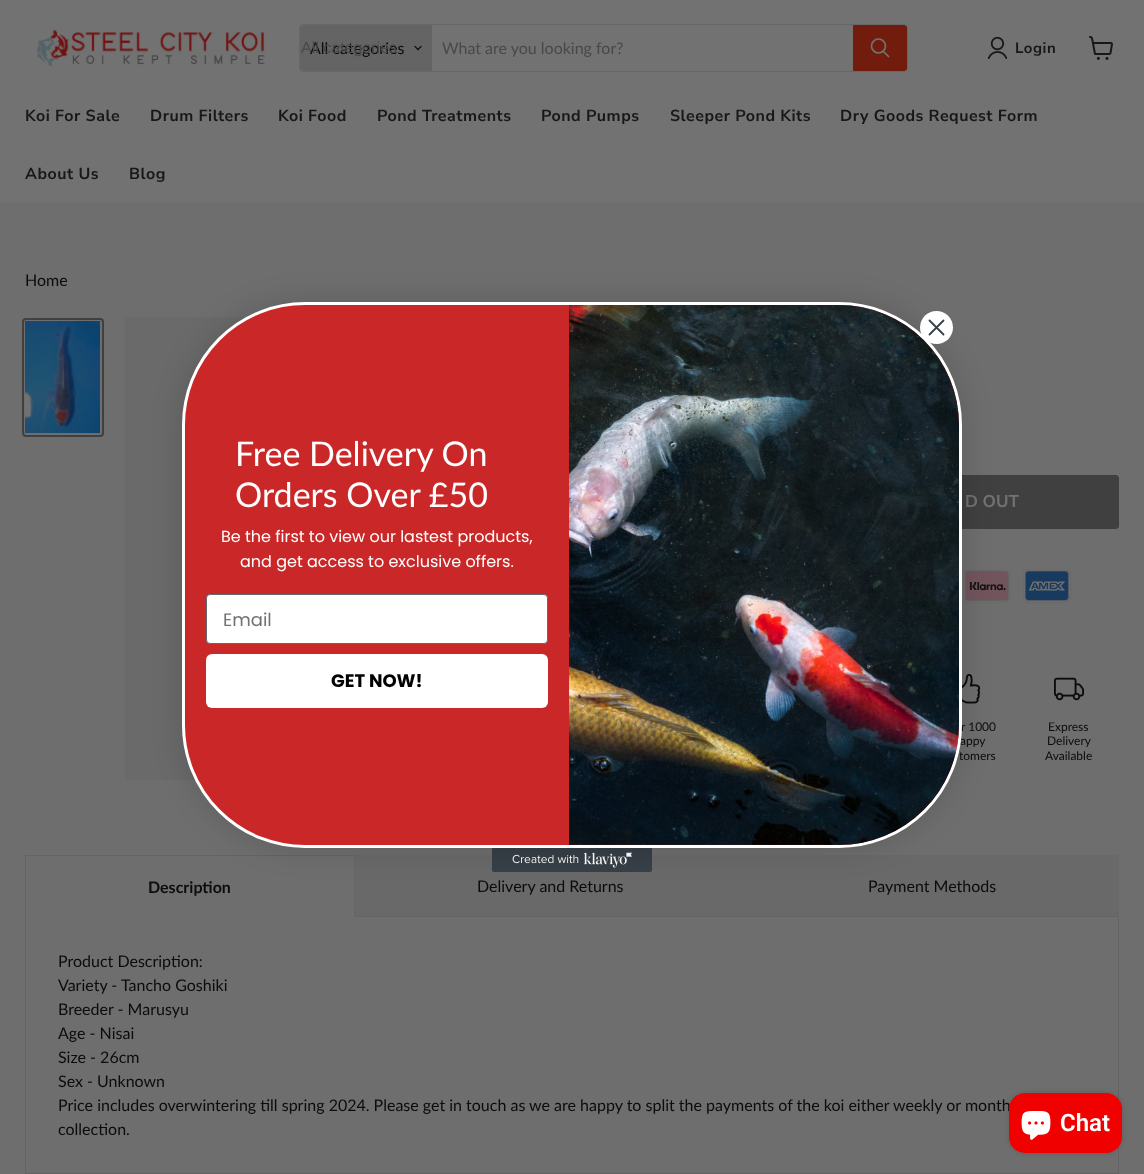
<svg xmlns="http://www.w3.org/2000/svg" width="1144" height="1174">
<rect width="100%" height="100%" fill="#6e6e6e"/>
<rect width="1144" height="203" fill="#727272"/>
<image x="36" y="28" width="229" height="39" href="media/1.png"/>
<rect x="299.5" y="24.5" width="608" height="47" rx="3.5" fill="none" stroke="#3d3d3d33"/>
<path d="M303 25h129v46h-129c-1.5 0-3-1.5-3-3v-40c0-1.5 1.5-3 3-3z" fill="#646464"/>
<text x="310" y="54" style="font-family:Lato;font-size:16px;fill:#0c0c0c">All categories</text>
<text x="301" y="53" style="font-family:Liberation Sans;font-size:16px;fill:#494949">All categories</text>
<image x="414" y="45" width="8" height="6" href="media/2.png"/>
<text x="442" y="54" style="font-family:Lato;font-size:16px;fill:#494949">What are you looking for?</text>
<path d="M853.5 25.5h50.5c1.5 0 2.5 1 2.5 2.5v40c0 1.5-1 2.5-2.5 2.5h-50.5z" fill="#721c0e" stroke="#721c0e"/>
<path d="M888.5 56.5l-5-5" fill="none" stroke="#727272" stroke-width="1.7" stroke-linecap="round"/>
<circle cx="878.5" cy="46" r="7" fill="none" stroke="#727272" stroke-width="1.7"/>
<image x="987" y="36" width="20" height="24" href="media/3.png"/>
<text x="1015" y="53" style="font-family:Nunito Sans;font-size:15px;font-weight:bold;letter-spacing:0.5px;fill:#181818">Login</text>
<image x="1089" y="36" width="24" height="24" href="media/4.png"/>
<text x="25" y="121" style="font-family:Nunito Sans;font-size:16px;font-weight:bold;letter-spacing:0.5px;fill:#181818">Koi For Sale</text>
<text x="150" y="121" style="font-family:Nunito Sans;font-size:16px;font-weight:bold;letter-spacing:0.5px;fill:#181818">Drum Filters</text>
<text x="278" y="121" style="font-family:Nunito Sans;font-size:16px;font-weight:bold;letter-spacing:0.5px;fill:#181818">Koi Food</text>
<text x="377" y="121" style="font-family:Nunito Sans;font-size:16px;font-weight:bold;letter-spacing:0.5px;fill:#181818">Pond Treatments</text>
<text x="541" y="121" style="font-family:Nunito Sans;font-size:16px;font-weight:bold;letter-spacing:0.5px;fill:#181818">Pond Pumps</text>
<text x="670" y="121" style="font-family:Nunito Sans;font-size:16px;font-weight:bold;letter-spacing:0.5px;fill:#181818">Sleeper Pond Kits</text>
<text x="840" y="121" style="font-family:Nunito Sans;font-size:16px;font-weight:bold;letter-spacing:0.5px;fill:#181818">Dry Goods Request Form</text>
<text x="25" y="179" style="font-family:Nunito Sans;font-size:16px;font-weight:bold;letter-spacing:0.5px;fill:#181818">About Us</text>
<text x="129" y="179" style="font-family:Nunito Sans;font-size:16px;font-weight:bold;letter-spacing:0.5px;fill:#181818">Blog</text>
<text x="25" y="286" style="font-family:Lato;font-size:16px;fill:#0c0c0c">Home</text>
<image x="76" y="276" width="4" height="7" href="media/5.png"/>
<rect x="23" y="319" width="80" height="117" rx="3" fill="none" stroke="#404040" stroke-width="2"/>
<image x="25" y="321" width="75" height="112" href="media/6.png"/>
<rect x="125" y="317" width="121" height="463" fill="#6a6a6a"/>
<rect x="832.5" y="475.5" width="286" height="53" rx="2.5" fill="#404040" stroke="#404040"/>
<text x="965" y="507" style="font-family:Nunito Sans;font-size:17px;font-weight:bold;fill:#727272">D OUT</text>
<image x="963" y="569" width="48" height="34" href="media/7.png"/>
<image x="1023" y="569" width="48" height="34" href="media/8.png"/>
<image x="962" y="674" width="19" height="30" href="media/9.png"/>
<text x="961" y="731" style="font-family:Lato;font-size:12px;fill:#0c0c0c">r 1000</text>
<text x="960" y="745" style="font-family:Lato;font-size:12px;fill:#0c0c0c">appy</text>
<text x="959" y="760" style="font-family:Lato;font-size:12px;fill:#0c0c0c">tomers</text>
<image x="1054" y="677" width="30" height="24" href="media/10.png"/>
<text x="1048" y="731" style="font-family:Lato;font-size:12px;fill:#0c0c0c">Express</text>
<text x="1047" y="745" style="font-family:Lato;font-size:12px;fill:#0c0c0c">Delivery</text>
<text x="1045" y="760" style="font-family:Lato;font-size:12px;fill:#0c0c0c">Available</text>
<rect x="25" y="855" width="330" height="1" fill="#646464"/>
<rect x="354" y="855" width="1" height="62" fill="#646464"/>
<rect x="25" y="855" width="1" height="62" fill="#646464"/>
<text x="148" y="893" style="font-family:Lato;font-size:16px;font-weight:bold;fill:#0c0c0c">Description</text>
<rect x="355" y="855" width="764" height="61" fill="#696969"/>
<rect x="355" y="916" width="764" height="1" fill="#646464"/>
<text x="477" y="892" style="font-family:Lato;font-size:16px;fill:#0c0c0c">Delivery and Returns</text>
<text x="868" y="892" style="font-family:Lato;font-size:16px;fill:#0c0c0c">Payment Methods</text>
<rect x="1118" y="917" width="1" height="257" fill="#646464"/>
<rect x="25" y="1173" width="1094" height="1" fill="#646464"/>
<rect x="25" y="917" width="1" height="257" fill="#646464"/>
<text x="58" y="967" style="font-family:Lato;font-size:16px;fill:#0c0c0c">Product Description:</text>
<text x="58" y="991" style="font-family:Lato;font-size:16px;fill:#0c0c0c">Variety - Tancho Goshiki</text>
<text x="58" y="1015" style="font-family:Lato;font-size:16px;fill:#0c0c0c">Breeder - Marusyu</text>
<text x="58" y="1039" style="font-family:Lato;font-size:16px;fill:#0c0c0c">Age - Nisai</text>
<text x="58" y="1063" style="font-family:Lato;font-size:16px;fill:#0c0c0c">Size - 26cm</text>
<text x="58" y="1087" style="font-family:Lato;font-size:16px;fill:#0c0c0c">Sex - Unknown</text>
<text x="58" y="1111" style="font-family:Lato;font-size:16px;fill:#0c0c0c">Price includes overwintering till spring 2024. Please get in touch as we are happy to split the payments of the koi either weekly or month</text>
<text x="58" y="1135" style="font-family:Lato;font-size:16px;fill:#0c0c0c">collection.</text>
<image x="492" y="848" width="160" height="24" href="media/12.png"/>
<rect x="182" y="302" width="780" height="546" rx="123" fill="#00000026" filter="blur(15px)"/>
<rect x="183.5" y="303.5" width="777" height="543" rx="121.5" fill="#ca2828" stroke="#fff" stroke-width="3"/>
<image x="569" y="305" width="390" height="540" href="media/11.png"/>
<circle cx="936.5" cy="327.5" r="16.5" fill="#fff"/>
<path d="M929.5 320.5l14 14m-14 0l14-14z" fill="none" stroke="#373f47" stroke-width="1.8" stroke-linecap="round" stroke-linejoin="round"/>
<text x="235" y="466" style="font-family:Lato;font-size:34px;fill:#fff">Free Delivery On</text>
<text x="235" y="507" style="font-family:Lato;font-size:34px;fill:#fff">Orders Over £50</text>
<text x="221" y="542" style="font-family:Poppins;font-size:16px;fill:#fff">Be the first to view our lastest products,</text>
<text x="240" y="567" style="font-family:Poppins;font-size:16px;fill:#fff">and get access to exclusive offers.</text>
<rect x="206.5" y="594.5" width="341" height="49" rx="3.5" fill="#fff" stroke="#606a72"/>
<text x="223" y="626" style="font-family:Poppins;font-size:18px;fill:#727272">Email</text>
<rect x="206" y="654" width="342" height="54" rx="6" fill="#fff"/>
<text x="331" y="687" style="font-family:Poppins;font-size:18px;font-weight:bold;fill:#000">GET NOW!</text>
<rect x="1009" y="1093" width="113" height="60" rx="16" fill="#00000026" filter="blur(2.5px)"/>
<rect x="1009" y="1093" width="113" height="60" rx="16" fill="#f10000"/>
<image x="1021" y="1111" width="30" height="29" href="media/13.png"/>
<text x="1060" y="1131" style="font-family:Roboto;font-size:24px;font-weight:600;fill:#fff">Chat</text>
</svg>
